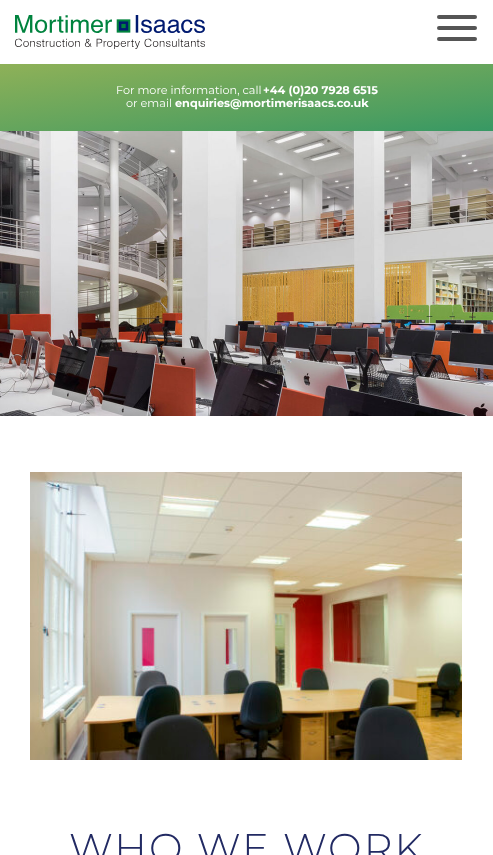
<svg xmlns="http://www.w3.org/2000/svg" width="493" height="855">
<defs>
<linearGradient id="g1" gradientUnits="userSpaceOnUse" x1="238" y1="32" x2="255" y2="163"><stop offset="0" stop-color="#8fb158"/><stop offset="0.25" stop-color="#7aab5a"/><stop offset="0.5" stop-color="#65a55d"/><stop offset="0.75" stop-color="#4f9f60"/><stop offset="1" stop-color="#369864"/></linearGradient>
</defs>
<rect width="100%" height="100%" fill="#fff"/>
<image x="15" y="15" width="190" height="34" href="media/1.png"/>
<rect x="437" y="15" width="40" height="4" rx="2" fill="#555"/>
<rect x="437" y="26" width="40" height="4" rx="2" fill="#555"/>
<rect x="437" y="37" width="40" height="4" rx="2" fill="#555"/>
<rect y="64" width="493" height="67" fill="url(#g1)"/>
<text x="116" y="94" style="font-family:Montserrat;font-size:11.25px;fill:#fff">For more information, call</text>
<text x="263" y="94" style="font-family:Montserrat;font-size:11.25px;font-weight:bold;fill:#fff">+44 (0)20 7928 6515</text>
<text x="126" y="107" style="font-family:Montserrat;font-size:11.25px;fill:#fff">or email</text>
<text x="175" y="107" style="font-family:Montserrat;font-size:11.25px;font-weight:bold;fill:#fff">enquiries@mortimerisaacs.co.uk</text>
<image x="0" y="131" width="493" height="285" href="media/2.png"/>
<image x="30" y="472" width="432" height="288" href="media/3.png"/>
<text x="69" y="862" style="font-family:Montserrat;font-size:40px;font-weight:300;letter-spacing:2px;fill:#222a63">WHO WE WORK</text>
</svg>
